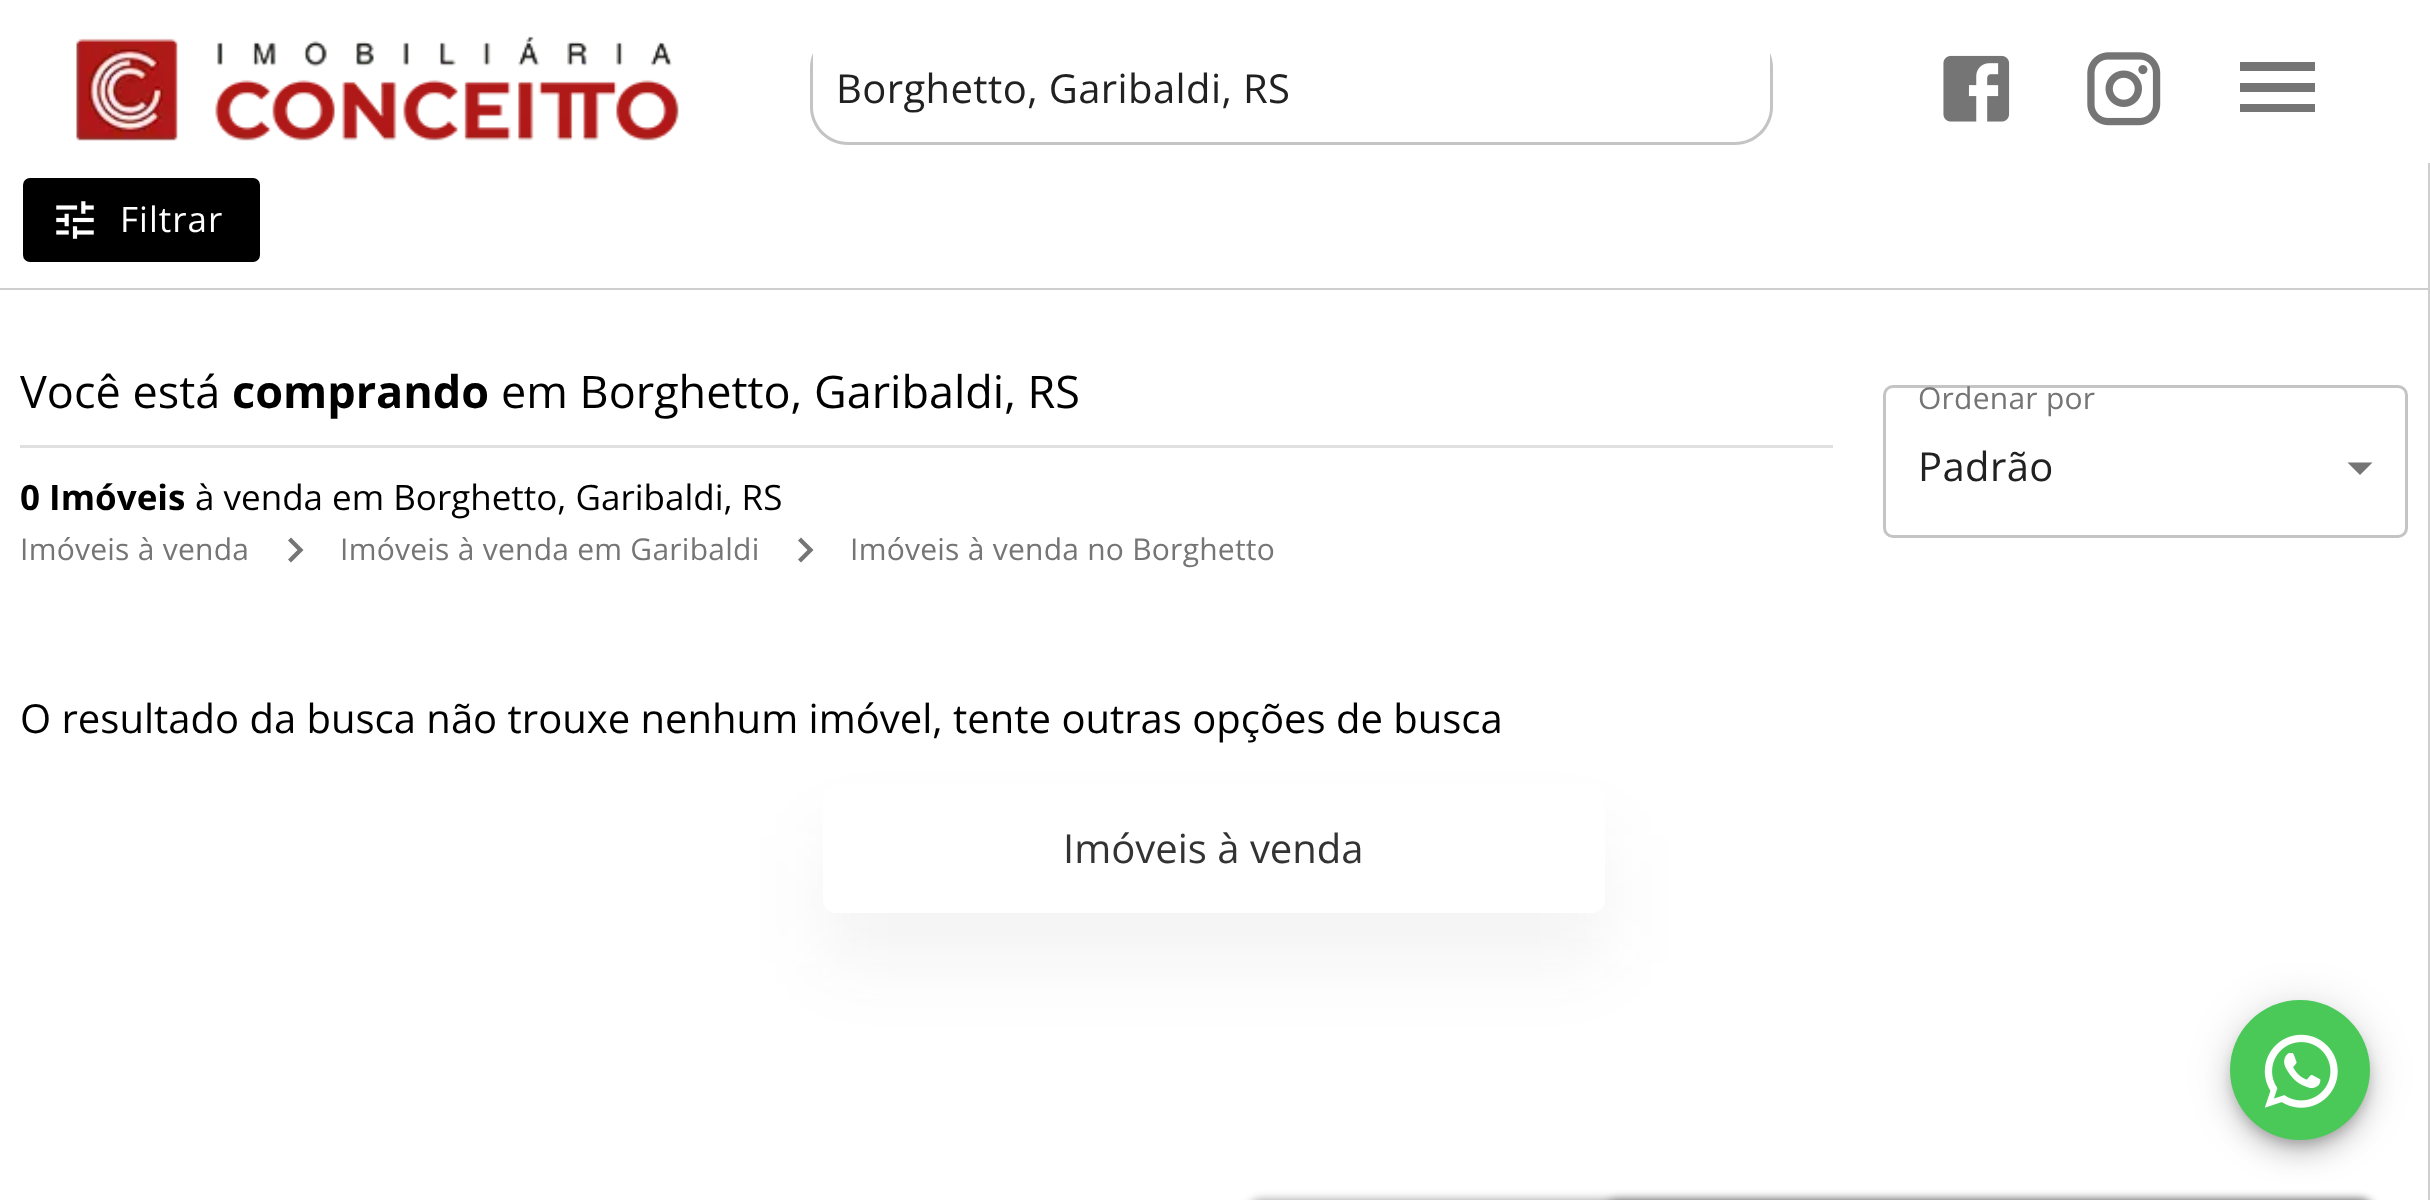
<svg xmlns="http://www.w3.org/2000/svg" width="2430" height="1200">
<defs>
<clipPath id="clip1"><path d="M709 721h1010v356h-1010zm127 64h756c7 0 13 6 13 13v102c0 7-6 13-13 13h-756c-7 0-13-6-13-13v-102c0-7 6-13 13-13z" clip-rule="evenodd"/></clipPath>
</defs>
<rect width="100%" height="100%" fill="#fff"/>
<image x="76" y="36" width="603" height="105" href="media/1.png"/>
<text x="836" y="103" style="font-family:Open Sans;font-size:40px;letter-spacing:0.4px;fill:#212121">Borghetto, Garibaldi, RS</text>
<path d="M810 68v39c0 21 17 38 38 38h887c21 0 38-17 38-38v-39c0-5-1-11-3-15v54c0 19-16 35-35 35h-887c-19 0-35-16-35-35v-54c-2 4-3 10-3 15z" fill="#c4c4c4"/>
<image x="1943" y="55" width="67" height="67" href="media/2.png"/>
<image x="2087" y="52" width="74" height="74" href="media/3.png"/>
<path d="M2240 112h75v-8h-75zm0-20h75v-9h-75zm0-30v9h75v-9z" fill="#757575"/>
<rect x="2428" y="163" width="2" height="1037" fill="#cecece"/>
<rect y="288" width="2428" height="2" fill="#cecece"/>
<rect x="21.5" y="176.5" width="240" height="87" rx="8.5" fill="#000" stroke="#fff" stroke-width="3"/>
<image x="56" y="201" width="38" height="38" href="media/4.png"/>
<text x="120" y="232" style="font-family:Open Sans;font-size:35px;letter-spacing:1px;fill:#fff">Filtrar</text>
<text x="20" y="408" style="font-family:Open Sans;font-size:45px;fill:#000">Você está</text>
<text x="232" y="408" style="font-family:Open Sans;font-size:45px;font-weight:bold;fill:#000">comprando</text>
<text x="501" y="408" style="font-family:Open Sans;font-size:45px;fill:#000">em Borghetto, Garibaldi, RS</text>
<rect x="20" y="445" width="1813" height="3" fill="#e0e0e0"/>
<text x="20" y="510" style="font-family:Open Sans;font-size:35px;font-weight:bold;fill:#000">0 Imóveis</text>
<text x="195" y="510" style="font-family:Open Sans;font-size:35px;fill:#000">à venda em Borghetto, Garibaldi, RS</text>
<text x="20" y="560" style="font-family:Open Sans;font-size:30px;letter-spacing:0.25px;fill:#757575">Imóveis à venda</text>
<path d="M291 537.5l-3 3l9.5 9.5l-9.5 9.5l3 3l12.5-12.5z" fill="#757575"/>
<text x="340" y="560" style="font-family:Open Sans;font-size:30px;letter-spacing:0.25px;fill:#757575">Imóveis à venda em Garibaldi</text>
<path d="M801 537.5l-3 3l9.5 9.5l-9.5 9.5l3 3l12.5-12.5z" fill="#757575"/>
<text x="850" y="560" style="font-family:Open Sans;font-size:30px;letter-spacing:0.25px;fill:#757575">Imóveis à venda no Borghetto</text>
<path d="M2347.5 462.5l12.5 12.5l12.5-12.5z" fill="#757575"/>
<rect x="1884.5" y="386.5" width="522" height="150" rx="8.5" fill="none" stroke="#c4c4c4" stroke-width="3"/>
<text x="1918" y="409" style="font-family:Open Sans;font-size:30px;letter-spacing:0.25px;fill:#757575">Ordenar por</text>
<text x="1918" y="481" style="font-family:Open Sans;font-size:40px;letter-spacing:0.4px;fill:#212121">Padrão</text>
<text x="20" y="733" style="font-family:Open Sans;font-size:40px;fill:#000">O resultado da busca não trouxe nenhum imóvel, tente outras opções de busca</text>
<g clip-path="url(#clip1)">
<rect x="823" y="835" width="782" height="128" rx="13" fill="#3333330f" filter="blur(37.5px)"/>
</g>
<text x="1063" y="863" style="font-family:Open Sans;font-size:40px;fill:#333">Imóveis à venda</text>
<rect x="2230" y="1003" width="140" height="140" rx="70" fill="#0000001f" filter="blur(22.5px)"/>
<rect x="2230" y="1015" width="140" height="140" rx="70" fill="#00000024" filter="blur(12.5px)"/>
<rect x="2233" y="1010" width="135" height="135" rx="67.5" fill="#00000033" filter="blur(6px)"/>
<circle cx="2300" cy="1070" r="70" fill="#4ac959"/>
<image x="2264" y="1034" width="74" height="74" href="media/5.png"/>
<rect x="1605" y="1200" width="768" height="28" rx="13" fill="#00000066" filter="blur(5px)"/>
<rect x="1248" y="1200" width="1125" height="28" rx="13" fill="#00000066" filter="blur(5px)"/>
</svg>
